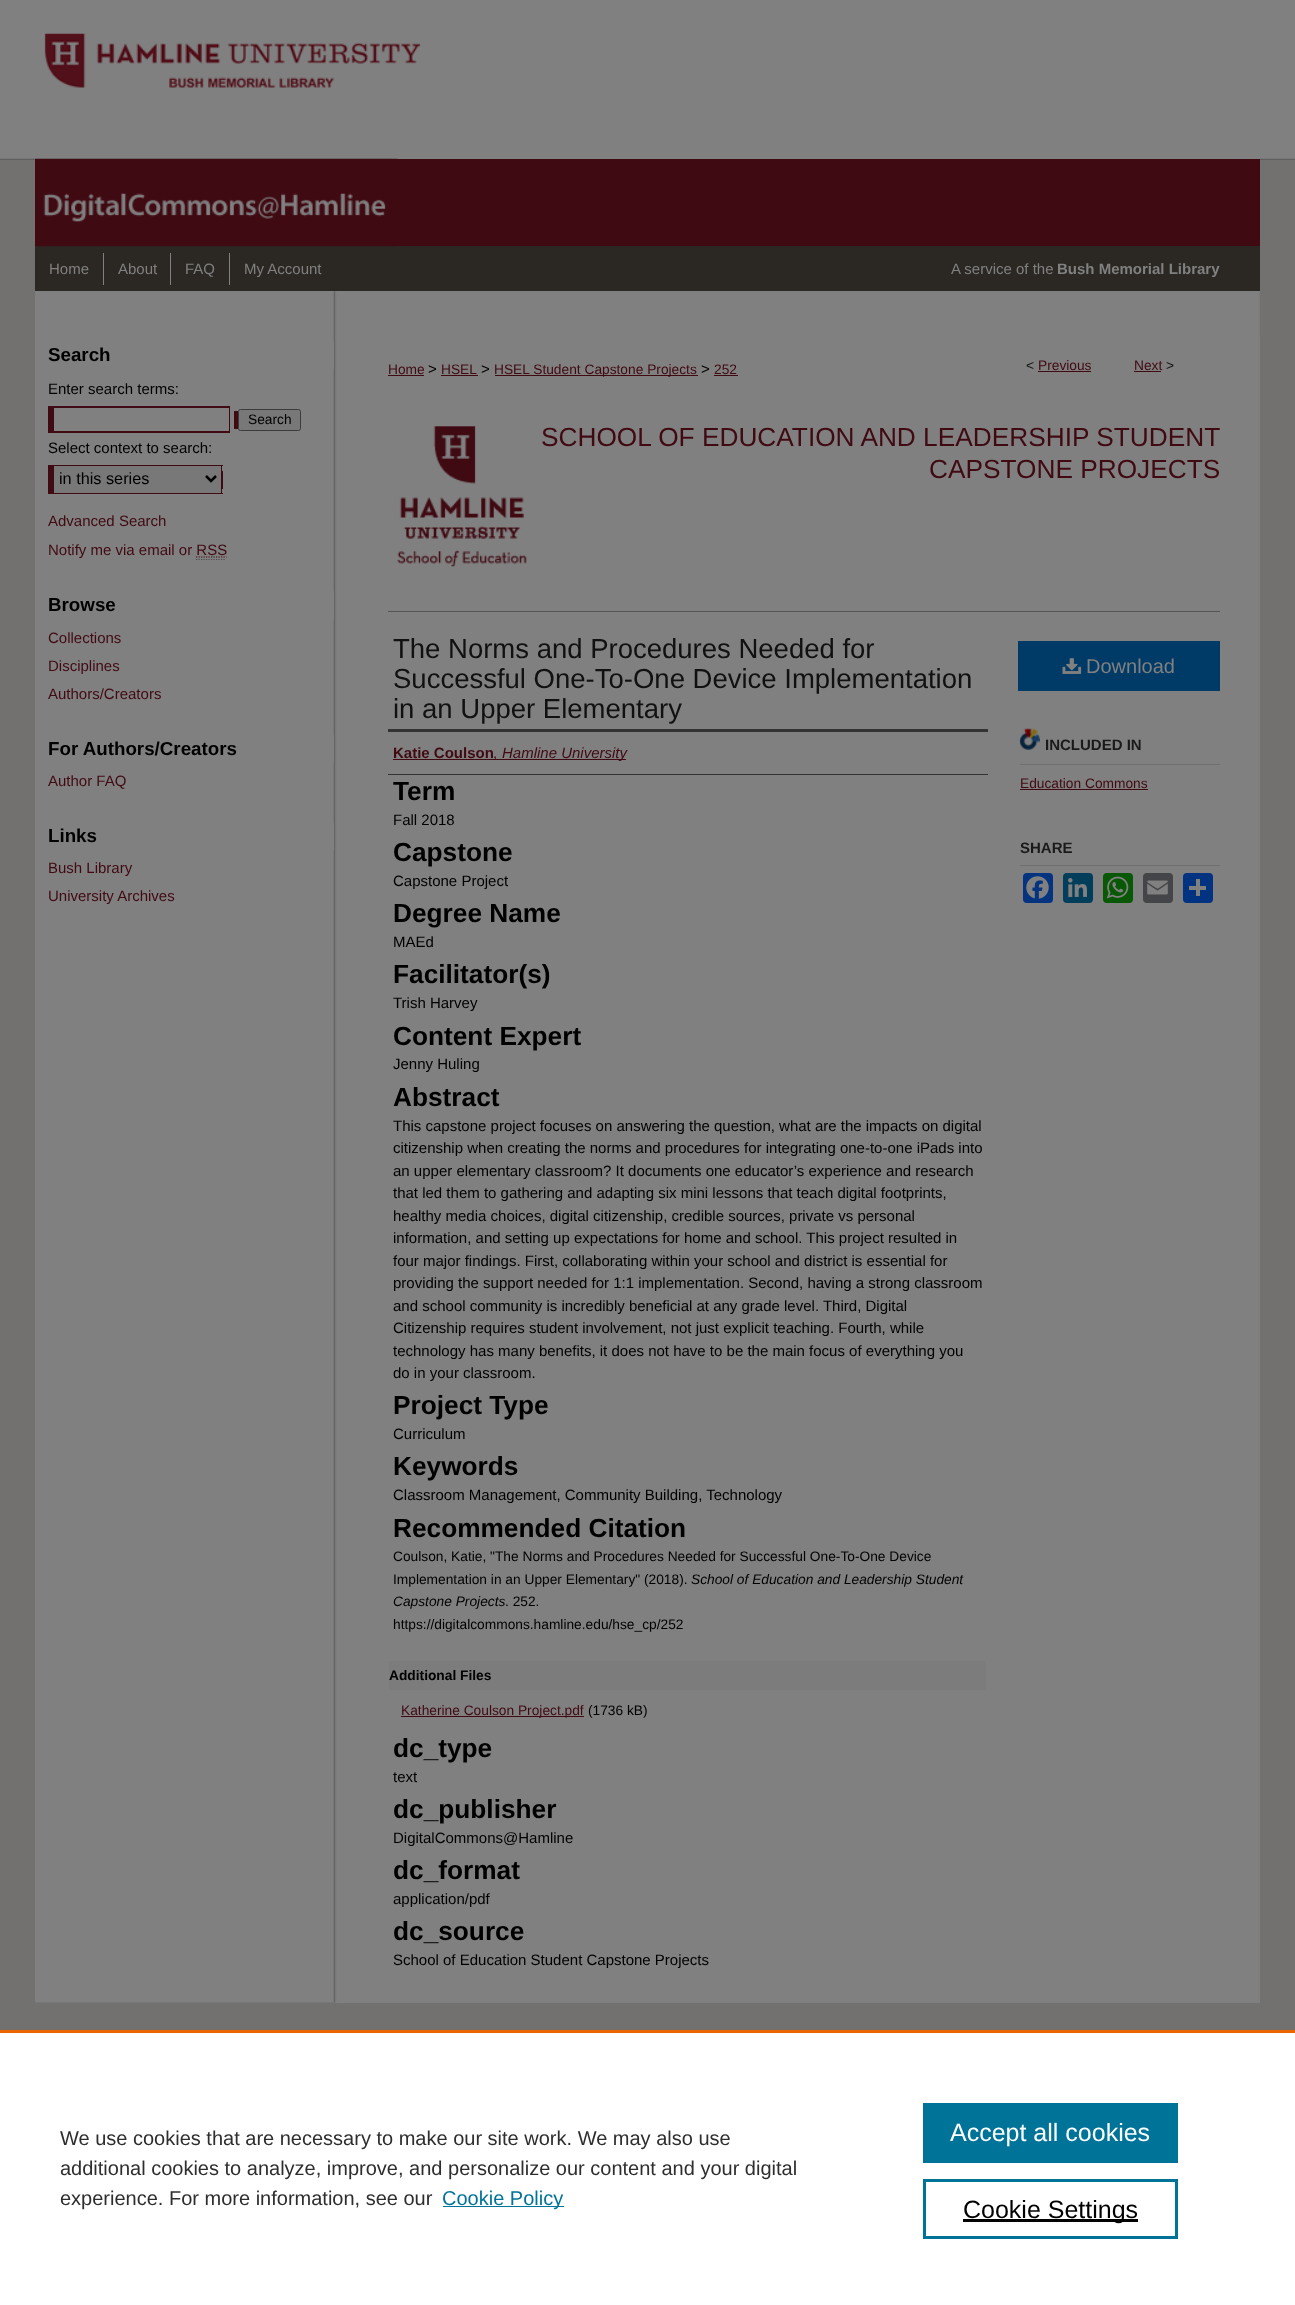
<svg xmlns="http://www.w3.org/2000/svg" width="1295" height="2305">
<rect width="100%" height="100%" fill="#72716f"/>
<image x="0" y="0" width="1295" height="160" href="media/1.png"/>
<rect x="397" y="159" width="863" height="87" fill="#400a13"/>
<rect x="35" y="158" width="1225" height="1" fill="#808080"/>
<image x="44" y="33" width="377" height="55" href="media/2.png"/>
<rect x="35" y="246" width="1225" height="45" fill="#2b2823"/>
<image x="35" y="158" width="363" height="89" href="media/3.png"/>
<rect x="103" y="253" width="1" height="32" fill="#808080"/>
<text x="49" y="274" style="font-family:Liberation Sans;font-size:15px;fill:#808080">Home</text>
<rect x="170" y="253" width="1" height="32" fill="#808080"/>
<text x="118" y="274" style="font-family:Liberation Sans;font-size:15px;fill:#808080">About</text>
<rect x="229" y="253" width="1" height="32" fill="#808080"/>
<text x="185" y="274" style="font-family:Liberation Sans;font-size:15px;fill:#808080">FAQ</text>
<text x="244" y="274" style="font-family:Liberation Sans;font-size:15px;fill:#808080">My Account</text>
<text x="951" y="274" style="font-family:Liberation Sans;font-size:15px;fill:#808080">A service of the</text>
<text x="1057" y="274" style="font-family:Liberation Sans;font-size:15px;font-weight:bold;fill:#808080">Bush Memorial Library</text>
<rect x="35" y="291" width="1225" height="1712" fill="#808080"/>
<image x="333" y="291" width="927" height="1712" href="media/4.png"/>
<rect x="333" y="341" width="1" height="28" fill="#808080"/>
<text x="48" y="361" style="font-family:Liberation Sans;font-size:18.75px;font-weight:bold;fill:#000">Search</text>
<text x="48" y="394" style="font-family:Liberation Sans;font-size:15px;fill:#000">Enter search terms:</text>
<rect x="48" y="406" width="182" height="27" fill="#400a13"/>
<rect x="234" y="411" width="4" height="18" fill="#400a13"/>
<rect x="54" y="408" width="175" height="23" fill="#808080"/>
<rect x="238.5" y="409.5" width="62" height="21" rx="2" fill="#787878" stroke="#3b3b3b"/>
<text x="248" y="424" style="font-family:Liberation Sans;font-size:13.75px;fill:#000">Search</text>
<text x="48" y="453" style="font-family:Liberation Sans;font-size:15px;fill:#000">Select context to search:</text>
<rect x="222" y="471" width="1" height="18" fill="#400a13"/>
<rect x="54" y="466" width="167" height="27" fill="#787878"/>
<rect x="48" y="465" width="175" height="1" fill="#400a13"/>
<rect x="221" y="465" width="1" height="29" fill="#400a13"/>
<rect x="48" y="493" width="175" height="1" fill="#400a13"/>
<rect x="48" y="465" width="6" height="29" fill="#400a13"/>
<path d="M206 476l5 5l5-5" fill="none" stroke="#000" stroke-width="2.5"/>
<text x="59" y="484" style="font-family:Liberation Sans;font-size:16.25px;fill:#000">in this series</text>
<text x="48" y="526" style="font-family:Liberation Sans;font-size:15px;fill:#400a13">Advanced Search</text>
<text x="48" y="555" style="font-family:Liberation Sans;font-size:15px;fill:#400a13">Notify me via email or RSS</text>
<path d="M196 557h30.5" fill="none" stroke="#400a13" stroke-width="1.2" stroke-dasharray="1.25 1.25"/>
<path d="M196 559.5h30" fill="none" stroke="#4d4d4d" stroke-width="1.2" stroke-dasharray="1.25 1.25"/>
<rect x="333" y="591" width="1" height="29" fill="#808080"/>
<text x="48" y="611" style="font-family:Liberation Sans;font-size:18.75px;font-weight:bold;fill:#000">Browse</text>
<text x="48" y="643" style="font-family:Liberation Sans;font-size:15px;fill:#400a13">Collections</text>
<text x="48" y="671" style="font-family:Liberation Sans;font-size:15px;fill:#400a13">Disciplines</text>
<text x="48" y="699" style="font-family:Liberation Sans;font-size:15px;fill:#400a13">Authors/Creators</text>
<rect x="333" y="735" width="1" height="28" fill="#808080"/>
<text x="48" y="755" style="font-family:Liberation Sans;font-size:18.75px;font-weight:bold;fill:#000">For Authors/Creators</text>
<text x="48" y="786" style="font-family:Liberation Sans;font-size:15px;fill:#400a13">Author FAQ</text>
<rect x="333" y="823" width="1" height="27" fill="#808080"/>
<text x="48" y="842" style="font-family:Liberation Sans;font-size:18.75px;font-weight:bold;fill:#000">Links</text>
<text x="48" y="873" style="font-family:Liberation Sans;font-size:15px;fill:#400a13">Bush Library</text>
<text x="48" y="901" style="font-family:Liberation Sans;font-size:15px;fill:#400a13">University Archives</text>
<rect x="1259" y="336" width="1" height="1667" fill="#808080"/>
<text x="388" y="374" style="font-family:Liberation Sans;font-size:13.75px;fill:#400a13">Home</text>
<rect x="388" y="375" width="36" height="1" fill="#400a13"/>
<text x="428" y="374" style="font-family:Liberation Sans;font-size:15px;fill:#000">&gt;</text>
<text x="441" y="374" style="font-family:Liberation Sans;font-size:13.75px;fill:#400a13">HSEL</text>
<rect x="441" y="375" width="37" height="1" fill="#400a13"/>
<text x="481" y="374" style="font-family:Liberation Sans;font-size:15px;fill:#000">&gt;</text>
<rect x="495" y="375" width="203" height="1" fill="#400a13"/>
<text x="494" y="374" style="font-family:Liberation Sans;font-size:13.75px;fill:#400a13">HSEL Student Capstone Projects</text>
<text x="701" y="374" style="font-family:Liberation Sans;font-size:15px;fill:#000">&gt;</text>
<text x="714" y="374" style="font-family:Liberation Sans;font-size:13.75px;fill:#400a13">252</text>
<rect x="714" y="375" width="24" height="1" fill="#400a13"/>
<text x="1026" y="370" style="font-family:Liberation Sans;font-size:13.75px;fill:#111">&lt;</text>
<text x="1038" y="370" style="font-family:Liberation Sans;font-size:13.75px;fill:#400a13">Previous</text>
<rect x="1038" y="371" width="53" height="1" fill="#400a13"/>
<text x="1134" y="370" style="font-family:Liberation Sans;font-size:13.75px;fill:#400a13">Next</text>
<rect x="1134" y="371" width="27" height="1" fill="#400a13"/>
<text x="1166" y="370" style="font-family:Liberation Sans;font-size:13.75px;fill:#111">&gt;</text>
<image x="397" y="426" width="130" height="141" href="media/5.png"/>
<text x="541" y="446" style="font-family:Liberation Sans;font-size:26.25px;fill:#400a13">SCHOOL OF EDUCATION AND LEADERSHIP STUDENT</text>
<text x="929" y="478" style="font-family:Liberation Sans;font-size:26.25px;fill:#400a13">CAPSTONE PROJECTS</text>
<rect x="388" y="611" width="832" height="1" fill="#555"/>
<text x="393" y="658" style="font-family:Liberation Sans;font-size:27.5px;fill:#111">The Norms and Procedures Needed for</text>
<text x="393" y="688" style="font-family:Liberation Sans;font-size:27.5px;fill:#111">Successful One-To-One Device Implementation</text>
<text x="393" y="718" style="font-family:Liberation Sans;font-size:27.5px;fill:#111">in an Upper Elementary</text>
<rect x="388" y="729" width="600" height="3" fill="#333"/>
<rect x="388" y="774" width="600" height="1" fill="#333"/>
<text x="393" y="758" style="font-family:Liberation Sans;font-size:15px;font-weight:bold;fill:#400a13">Katie Coulson</text>
<rect x="393" y="759" width="233" height="1" fill="#400a13"/>
<text x="493" y="758" style="font-family:Liberation Sans;font-size:15px;fill:#400a13">,</text>
<text x="502" y="758" style="font-family:Liberation Sans;font-size:15px;font-style:italic;fill:#400a13">Hamline University</text>
<text x="393" y="800" style="font-family:Liberation Sans;font-size:26.25px;font-weight:bold;fill:#000">Term</text>
<text x="393" y="825" style="font-family:Liberation Sans;font-size:15px;fill:#000">Fall 2018</text>
<text x="393" y="861" style="font-family:Liberation Sans;font-size:26.25px;font-weight:bold;fill:#000">Capstone</text>
<text x="393" y="886" style="font-family:Liberation Sans;font-size:15px;fill:#000">Capstone Project</text>
<text x="393" y="922" style="font-family:Liberation Sans;font-size:26.25px;font-weight:bold;fill:#000">Degree Name</text>
<text x="393" y="947" style="font-family:Liberation Sans;font-size:15px;fill:#000">MAEd</text>
<text x="393" y="983" style="font-family:Liberation Sans;font-size:26.25px;font-weight:bold;fill:#000">Facilitator(s)</text>
<text x="393" y="1008" style="font-family:Liberation Sans;font-size:15px;fill:#000">Trish Harvey</text>
<text x="393" y="1045" style="font-family:Liberation Sans;font-size:26.25px;font-weight:bold;fill:#000">Content Expert</text>
<text x="393" y="1069" style="font-family:Liberation Sans;font-size:15px;fill:#000">Jenny Huling</text>
<text x="393" y="1106" style="font-family:Liberation Sans;font-size:26.25px;font-weight:bold;fill:#000">Abstract</text>
<text x="393" y="1131" style="font-family:Liberation Sans;font-size:15px;fill:#000">This capstone project focuses on answering the question, what are the impacts on digital</text>
<text x="393" y="1153" style="font-family:Liberation Sans;font-size:15px;fill:#000">citizenship when creating the norms and procedures for integrating one-to-one iPads into</text>
<text x="393" y="1176" style="font-family:Liberation Sans;font-size:15px;fill:#000">an upper elementary classroom? It documents one educator’s experience and research</text>
<text x="393" y="1198" style="font-family:Liberation Sans;font-size:15px;fill:#000">that led them to gathering and adapting six mini lessons that teach digital footprints,</text>
<text x="393" y="1221" style="font-family:Liberation Sans;font-size:15px;fill:#000">healthy media choices, digital citizenship, credible sources, private vs personal</text>
<text x="393" y="1243" style="font-family:Liberation Sans;font-size:15px;fill:#000">information, and setting up expectations for home and school. This project resulted in</text>
<text x="393" y="1266" style="font-family:Liberation Sans;font-size:15px;fill:#000">four major findings. First, collaborating within your school and district is essential for</text>
<text x="393" y="1288" style="font-family:Liberation Sans;font-size:15px;fill:#000">providing the support needed for 1:1 implementation. Second, having a strong classroom</text>
<text x="393" y="1311" style="font-family:Liberation Sans;font-size:15px;fill:#000">and school community is incredibly beneficial at any grade level. Third, Digital</text>
<text x="393" y="1333" style="font-family:Liberation Sans;font-size:15px;fill:#000">Citizenship requires student involvement, not just explicit teaching. Fourth, while</text>
<text x="393" y="1356" style="font-family:Liberation Sans;font-size:15px;fill:#000">technology has many benefits, it does not have to be the main focus of everything you</text>
<text x="393" y="1378" style="font-family:Liberation Sans;font-size:15px;fill:#000">do in your classroom.</text>
<text x="393" y="1414" style="font-family:Liberation Sans;font-size:26.25px;font-weight:bold;fill:#000">Project Type</text>
<text x="393" y="1439" style="font-family:Liberation Sans;font-size:15px;fill:#000">Curriculum</text>
<text x="393" y="1475" style="font-family:Liberation Sans;font-size:26.25px;font-weight:bold;fill:#000">Keywords</text>
<text x="393" y="1500" style="font-family:Liberation Sans;font-size:15px;fill:#000">Classroom Management, Community Building, Technology</text>
<text x="393" y="1537" style="font-family:Liberation Sans;font-size:26.25px;font-weight:bold;fill:#000">Recommended Citation</text>
<text x="393" y="1561" style="font-family:Liberation Sans;font-size:13.75px;fill:#000">Coulson, Katie, "The Norms and Procedures Needed for Successful One-To-One Device</text>
<text x="393" y="1584" style="font-family:Liberation Sans;font-size:13.75px;fill:#000">Implementation in an Upper Elementary" (2018).</text>
<text x="691" y="1584" style="font-family:Liberation Sans;font-size:13.75px;font-style:italic;fill:#000">School of Education and Leadership Student</text>
<text x="393" y="1606" style="font-family:Liberation Sans;font-size:13.75px;font-style:italic;fill:#000">Capstone Projects</text>
<text x="505" y="1606" style="font-family:Liberation Sans;font-size:13.75px;fill:#000">. 252.</text>
<text x="393" y="1629" style="font-family:Liberation Sans;font-size:13.75px;fill:#000">https://digitalcommons.hamline.edu/hse_cp/252</text>
<rect x="389" y="1661" width="597" height="29" fill="#7c7c7c"/>
<text x="389" y="1680" style="font-family:Liberation Sans;font-size:13.75px;font-weight:bold;fill:#000">Additional Files</text>
<rect x="401" y="1716" width="183" height="1" fill="#400a13"/>
<text x="401" y="1715" style="font-family:Liberation Sans;font-size:13.75px;fill:#400a13">Katherine Coulson Project.pdf</text>
<text x="588" y="1715" style="font-family:Liberation Sans;font-size:13.75px;fill:#000">(1736 kB)</text>
<text x="393" y="1757" style="font-family:Liberation Sans;font-size:26.25px;font-weight:bold;fill:#000">dc_type</text>
<text x="393" y="1782" style="font-family:Liberation Sans;font-size:15px;fill:#000">text</text>
<text x="393" y="1818" style="font-family:Liberation Sans;font-size:26.25px;font-weight:bold;fill:#000">dc_publisher</text>
<text x="393" y="1843" style="font-family:Liberation Sans;font-size:15px;fill:#000">DigitalCommons@Hamline</text>
<text x="393" y="1879" style="font-family:Liberation Sans;font-size:26.25px;font-weight:bold;fill:#000">dc_format</text>
<text x="393" y="1904" style="font-family:Liberation Sans;font-size:15px;fill:#000">application/pdf</text>
<text x="393" y="1940" style="font-family:Liberation Sans;font-size:26.25px;font-weight:bold;fill:#000">dc_source</text>
<text x="393" y="1965" style="font-family:Liberation Sans;font-size:15px;fill:#000">School of Education Student Capstone Projects</text>
<rect x="1018" y="641" width="202" height="50" fill="#003a66"/>
<image x="1062" y="658" width="20" height="16" href="media/6.png"/>
<text x="1086" y="673" style="font-family:Liberation Sans;font-size:20px;fill:#808080">Download</text>
<image x="1020" y="728" width="20" height="22" href="media/7.png"/>
<rect x="1020" y="764" width="200" height="1" fill="#6f6f6f"/>
<text x="1045" y="750" style="font-family:Liberation Sans;font-size:15px;font-weight:bold;fill:#1a1a1a">INCLUDED IN</text>
<text x="1020" y="788" style="font-family:Liberation Sans;font-size:13.75px;fill:#400a13">Education Commons</text>
<rect x="1020" y="789" width="128" height="1" fill="#400a13"/>
<rect x="1020" y="865" width="200" height="1" fill="#6f6f6f"/>
<text x="1020" y="853" style="font-family:Liberation Sans;font-size:15px;font-weight:bold;fill:#1a1a1a">SHARE</text>
<rect x="1023" y="873" width="30" height="30" rx="4" fill="#043380"/>
<image x="1026" y="876" width="23" height="23" href="media/8.png"/>
<rect x="1063" y="873" width="30" height="30" rx="4" fill="#003e5b"/>
<image x="1068" y="878" width="19" height="19" href="media/9.png"/>
<rect x="1103" y="873" width="30" height="30" rx="4" fill="#095805"/>
<image x="1106" y="876" width="23" height="23" href="media/10.png"/>
<rect x="1143" y="873" width="30" height="30" rx="4" fill="#444548"/>
<image x="1147" y="880" width="21" height="15" href="media/11.png"/>
<rect x="1183" y="873" width="30" height="30" rx="4" fill="#013380"/>
<rect x="1196" y="879" width="4" height="17" fill="#808080"/>
<rect x="1189" y="886" width="17" height="4" fill="#808080"/>
<image x="35" y="2002" width="300" height="28" href="media/12.png"/>
<rect y="2033" width="1295" height="272" fill="#fff"/>
<rect y="2030" width="1295" height="3" fill="#eb6500"/>
<text x="60" y="2145" style="font-family:Liberation Sans;font-size:20px;fill:#2e2e2e">We use cookies that are necessary to make our site work. We may also use</text>
<text x="60" y="2175" style="font-family:Liberation Sans;font-size:20px;fill:#2e2e2e">additional cookies to analyze, improve, and personalize our content and your digital</text>
<text x="60" y="2205" style="font-family:Liberation Sans;font-size:20px;fill:#2e2e2e">experience. For more information, see our</text>
<rect x="443" y="2206" width="121" height="1" fill="#007398"/>
<text x="442" y="2205" style="font-family:Liberation Sans;font-size:20px;fill:#007398">Cookie Policy</text>
<rect x="923" y="2103" width="255" height="60" fill="#007398"/>
<text x="950" y="2141" style="font-family:Liberation Sans;font-size:25px;fill:#fff">Accept all cookies</text>
<rect x="924.5" y="2180.5" width="252" height="57" fill="none" stroke="#007398" stroke-width="3"/>
<rect x="963" y="2219" width="175" height="3" fill="#000"/>
<text x="963" y="2218" style="font-family:Liberation Sans;font-size:25px;fill:#000">Cookie Settings</text>
</svg>
